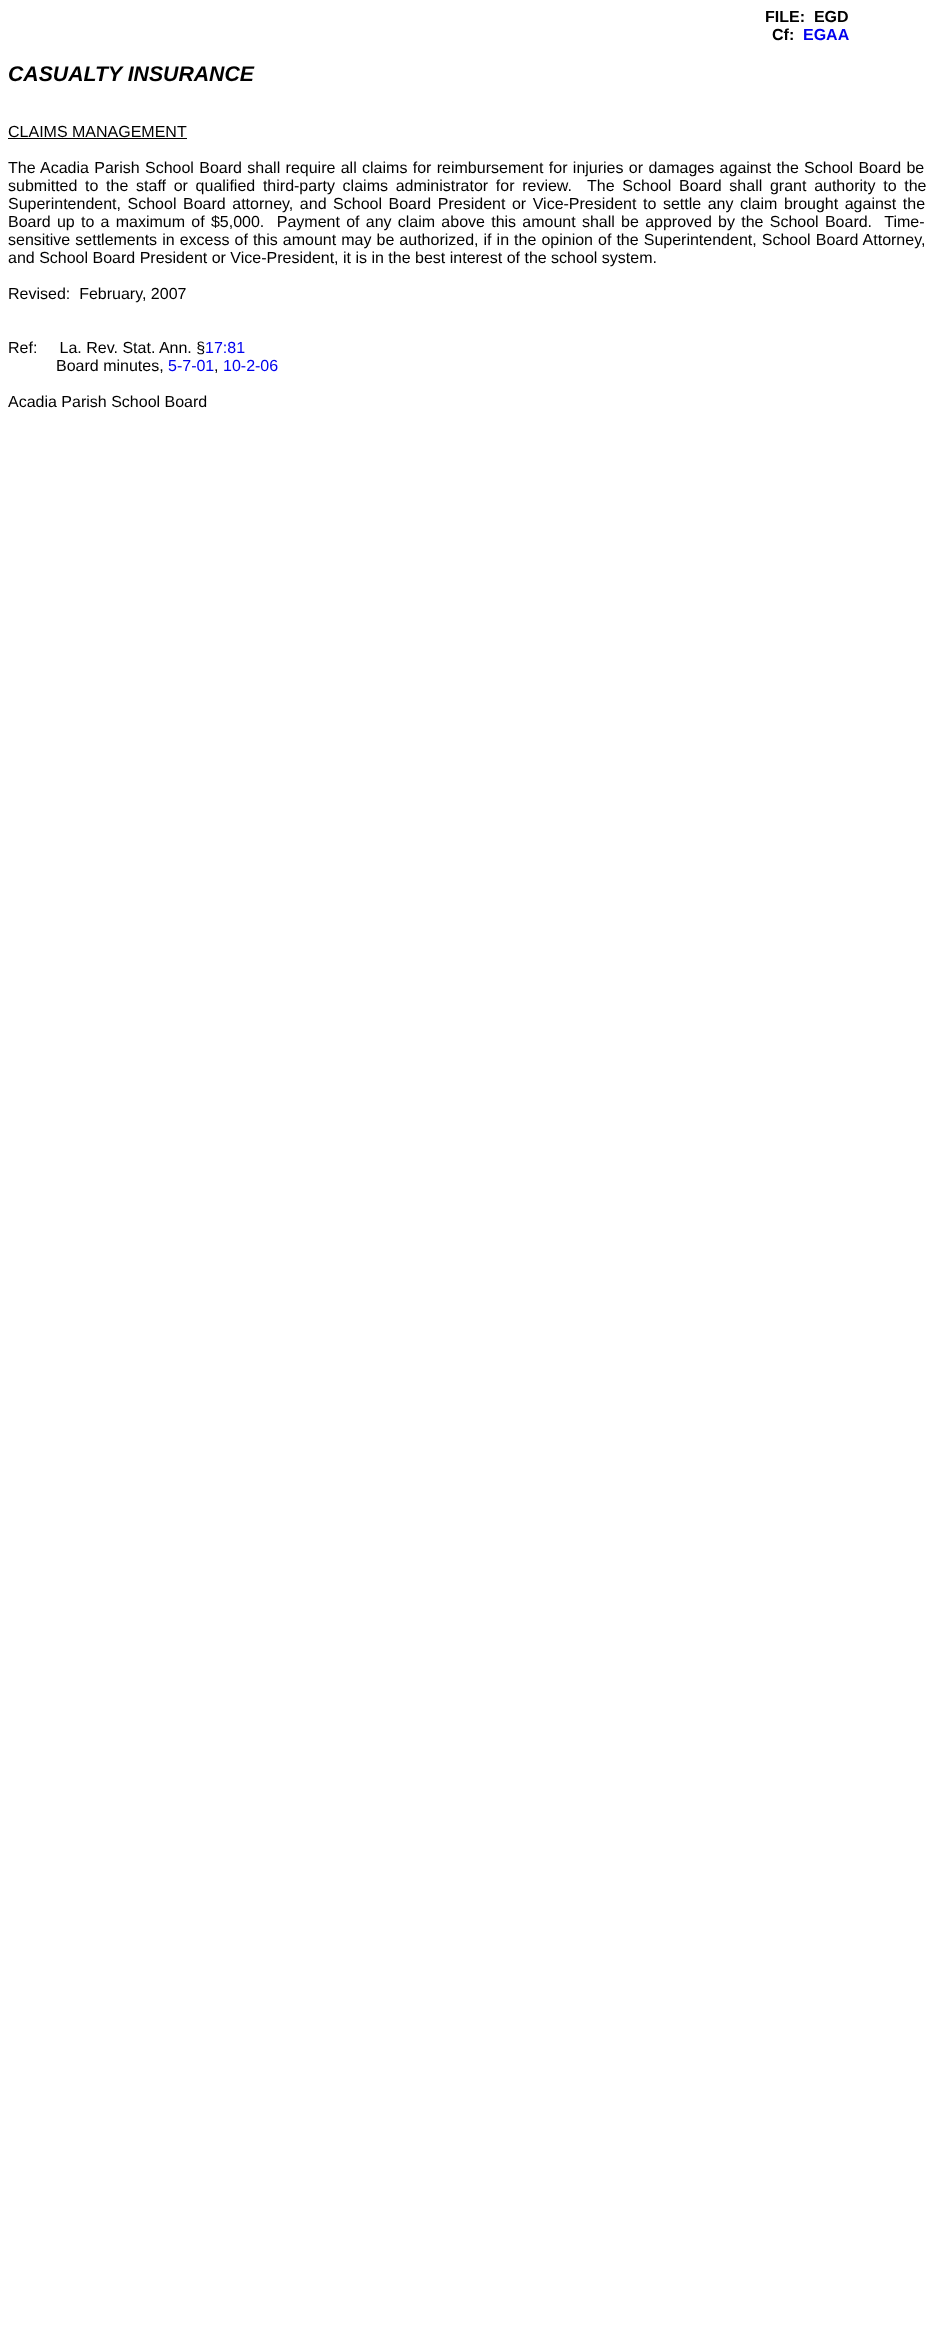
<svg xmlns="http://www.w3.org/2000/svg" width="943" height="2342">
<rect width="100%" height="100%" fill="#fff"/>
<text x="765" y="22" style="font-family:Liberation Sans;font-size:16px;font-weight:bold;fill:#000" xml:space="preserve">FILE:  EGD</text>
<text x="772" y="40" style="font-family:Liberation Sans;font-size:16px;font-weight:bold;fill:#000">Cf:</text>
<text x="803" y="40" style="font-family:Liberation Sans;font-size:16px;font-weight:bold;fill:#00e">EGAA</text>
<text x="8" y="81" style="font-family:Liberation Sans;font-size:21.25px;font-weight:bold;font-style:italic;fill:#000">CASUALTY INSURANCE</text>
<text x="8" y="137" style="font-family:Liberation Sans;font-size:16px;fill:#000">CLAIMS MANAGEMENT</text>
<rect x="8" y="138" width="179" height="1" fill="#000"/>
<text x="8" y="173" word-spacing="0.9" style="font-family:Liberation Sans;font-size:16px;fill:#000">The Acadia Parish School Board shall require all claims for reimbursement for injuries or damages against the School Board be</text>
<text x="8" y="191" word-spacing="3.25" style="font-family:Liberation Sans;font-size:16px;fill:#000" xml:space="preserve">submitted to the staff or qualified third-party claims administrator for review.  The School Board shall grant authority to the</text>
<text x="8" y="209" word-spacing="2.1" style="font-family:Liberation Sans;font-size:16px;fill:#000">Superintendent, School Board attorney, and School Board President or Vice-President to settle any claim brought against the</text>
<text x="8" y="227" word-spacing="1.8" style="font-family:Liberation Sans;font-size:16px;fill:#000" xml:space="preserve">Board up to a maximum of $5,000.  Payment of any claim above this amount shall be approved by the School Board.  Time-</text>
<text x="8" y="245" word-spacing="0.6" style="font-family:Liberation Sans;font-size:16px;fill:#000">sensitive settlements in excess of this amount may be authorized, if in the opinion of the Superintendent, School Board Attorney,</text>
<text x="8" y="263" style="font-family:Liberation Sans;font-size:16px;fill:#000">and School Board President or Vice-President, it is in the best interest of the school system.</text>
<text x="8" y="299" style="font-family:Liberation Sans;font-size:16px;fill:#000" xml:space="preserve">Revised:  February, 2007</text>
<text x="8" y="353" style="font-family:Liberation Sans;font-size:16px;fill:#000" xml:space="preserve">Ref:     La. Rev. Stat. Ann. §</text>
<text x="205" y="353" style="font-family:Liberation Sans;font-size:16px;fill:#00e">17:81</text>
<text x="56" y="371" style="font-family:Liberation Sans;font-size:16px;fill:#000">Board minutes,</text>
<text x="168" y="371" style="font-family:Liberation Sans;font-size:16px;fill:#00e">5-7-01</text>
<text x="214" y="371" style="font-family:Liberation Sans;font-size:16px;fill:#000">,</text>
<text x="223" y="371" style="font-family:Liberation Sans;font-size:16px;fill:#00e">10-2-06</text>
<text x="8" y="407" style="font-family:Liberation Sans;font-size:16px;fill:#000">Acadia Parish School Board</text>
</svg>
